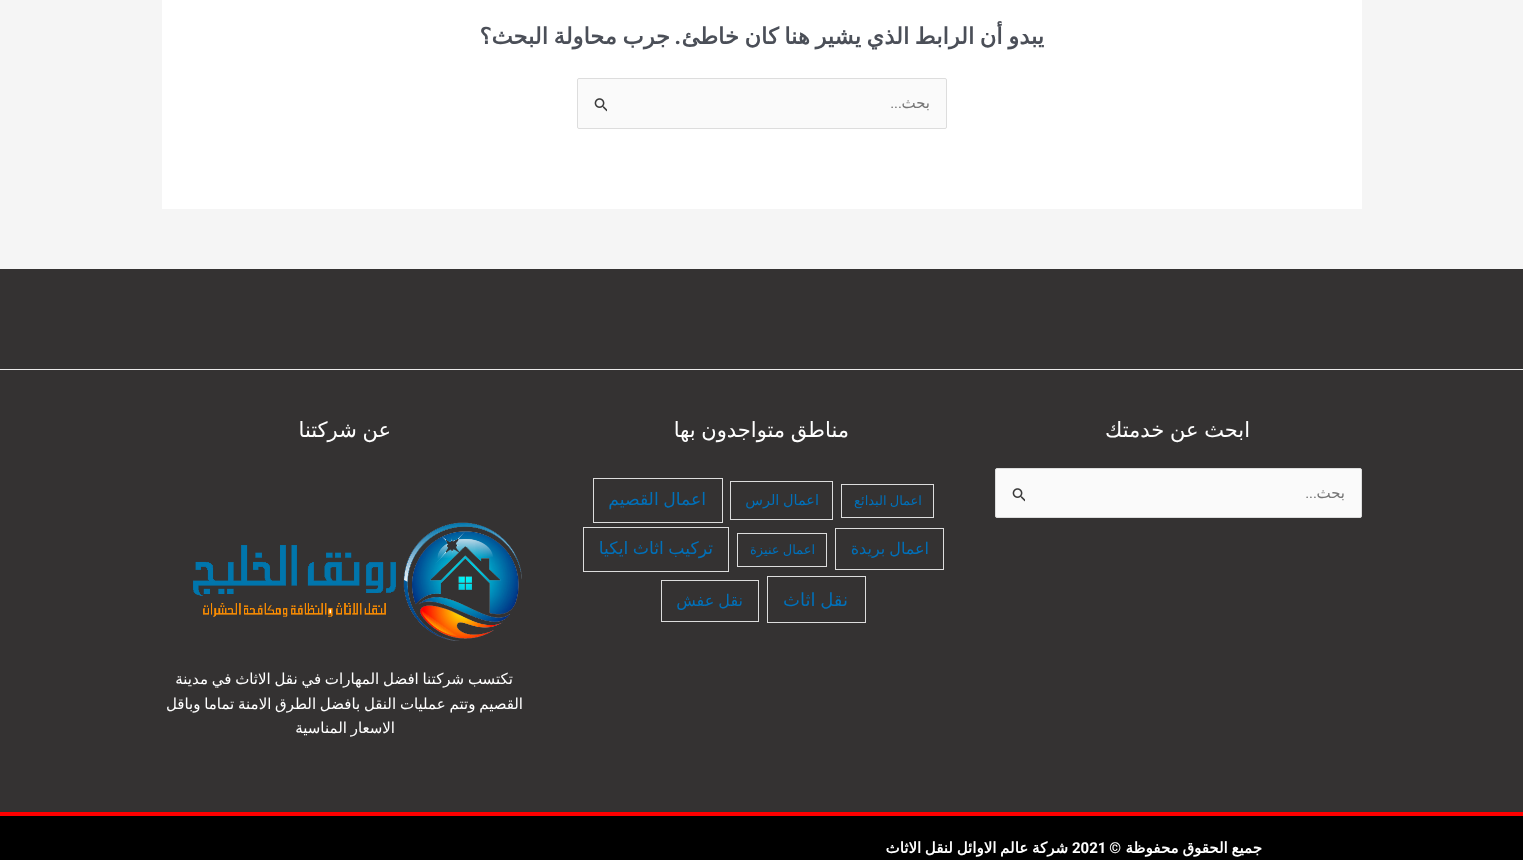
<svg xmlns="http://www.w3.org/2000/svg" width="1523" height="860">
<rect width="100%" height="100%" fill="#f5f5f5"/>
<rect x="162" width="1200" height="209" fill="#fff"/>
<text x="1044" y="44" word-spacing="-1.5" style="font-family:DejaVu Sans;font-size:22.5px;font-weight:bold;direction:rtl;fill:#4b4f58">يبدو أن الرابط الذي يشير هنا كان خاطئ</text>
<text x="681" y="44" style="font-family:Roboto;font-size:22.5px;font-weight:bold;direction:rtl;fill:#4b4f58">.</text>
<text x="670" y="44" word-spacing="-1.5" style="font-family:DejaVu Sans;font-size:22.5px;font-weight:bold;direction:rtl;fill:#4b4f58">جرب محاولة البحث؟</text>
<rect x="577.5" y="78.5" width="369" height="50" rx="1.5" fill="#fafafa" stroke="#ddd"/>
<text x="930" y="108" style="font-family:DejaVu Sans;font-size:15px;direction:rtl;fill:#757575">بحث</text>
<text x="902" y="108" style="font-family:Roboto;font-size:15px;direction:rtl;fill:#757575">...</text>
<image x="594" y="98" width="13" height="14" href="media/1.png"/>
<rect y="269" width="1523" height="100" fill="#343232"/>
<rect y="370" width="1523" height="442" fill="#343232"/>
<rect y="369" width="1523" height="1" fill="#ebebeb"/>
<text x="1250" y="437" word-spacing="-1" style="font-family:DejaVu Sans;font-size:21px;direction:rtl;fill:#fff">ابحث عن خدمتك</text>
<rect x="995.5" y="468.5" width="366" height="49" rx="1.5" fill="#fafafa" stroke="#ddd"/>
<text x="1345" y="498" style="font-family:DejaVu Sans;font-size:15px;direction:rtl;fill:#757575">بحث</text>
<text x="1317" y="498" style="font-family:Roboto;font-size:15px;direction:rtl;fill:#757575">...</text>
<image x="1012" y="488" width="13" height="14" href="media/1.png"/>
<text x="849" y="437" word-spacing="-1" style="font-family:DejaVu Sans;font-size:21px;direction:rtl;fill:#fff">مناطق متواجدون بها</text>
<rect x="841.5" y="484.5" width="92" height="33" fill="none" stroke="#ddd"/>
<text x="922" y="505" word-spacing="-1" style="font-family:DejaVu Sans;font-size:13px;direction:rtl;fill:#0170b9">اعمال البدائع</text>
<rect x="730.5" y="481.5" width="102" height="38" fill="none" stroke="#ddd"/>
<text x="819" y="505" word-spacing="-1" style="font-family:DejaVu Sans;font-size:14.5px;direction:rtl;fill:#0170b9">اعمال الرس</text>
<rect x="593.5" y="478.5" width="129" height="44" fill="none" stroke="#ddd"/>
<text x="706" y="505" word-spacing="-1" style="font-family:DejaVu Sans;font-size:17.25px;direction:rtl;fill:#0170b9">اعمال القصيم</text>
<rect x="835.5" y="528.5" width="108" height="41" fill="none" stroke="#ddd"/>
<text x="929" y="554" word-spacing="-1" style="font-family:DejaVu Sans;font-size:16px;direction:rtl;fill:#0170b9">اعمال بريدة</text>
<rect x="737.5" y="533.5" width="89" height="33" fill="none" stroke="#ddd"/>
<text x="815" y="554" word-spacing="-1" style="font-family:DejaVu Sans;font-size:13px;direction:rtl;fill:#0170b9">اعمال عنيزة</text>
<rect x="583.5" y="527.5" width="145" height="44" fill="none" stroke="#ddd"/>
<text x="713" y="554" word-spacing="-1" style="font-family:DejaVu Sans;font-size:17.25px;direction:rtl;fill:#0170b9">تركيب اثاث ايكيا</text>
<rect x="767.5" y="576.5" width="98" height="46" fill="none" stroke="#ddd"/>
<text x="848" y="606" word-spacing="-1" style="font-family:DejaVu Sans;font-size:18px;direction:rtl;fill:#0170b9">نقل اثاث</text>
<rect x="661.5" y="580.5" width="97" height="41" fill="none" stroke="#ddd"/>
<text x="743" y="606" word-spacing="-1" style="font-family:DejaVu Sans;font-size:16px;direction:rtl;fill:#0170b9">نقل عفش</text>
<text x="391" y="437" word-spacing="-1" style="font-family:DejaVu Sans;font-size:21px;direction:rtl;fill:#fff">عن شركتنا</text>
<image x="193" y="522" width="329" height="119" href="media/2.png"/>
<text x="513" y="684" word-spacing="-1" style="font-family:DejaVu Sans;font-size:15px;direction:rtl;fill:#fff">تكتسب شركتنا افضل المهارات في نقل الاثاث في مدينة</text>
<text x="523" y="709" word-spacing="-1" style="font-family:DejaVu Sans;font-size:15px;direction:rtl;fill:#fff">القصيم وتتم عمليات النقل بافضل الطرق الامنة تماما وباقل</text>
<text x="395" y="733" word-spacing="-1" style="font-family:DejaVu Sans;font-size:15px;direction:rtl;fill:#fff">الاسعار المناسية</text>
<rect y="816" width="1523" height="44" fill="#000"/>
<rect y="812" width="1523" height="4" fill="#f00"/>
<text x="1262" y="853" word-spacing="-1" style="font-family:DejaVu Sans;font-size:15px;font-weight:bold;direction:rtl;fill:#fff">جميع الحقوق محفوظة</text>
<text x="1121" y="853" style="font-family:Roboto;font-size:15px;font-weight:bold;direction:rtl;fill:#fff">©</text>
<text x="1072" y="853" style="font-family:Roboto;font-size:15px;font-weight:bold;fill:#fff">2021</text>
<text x="1068" y="853" word-spacing="-1" style="font-family:DejaVu Sans;font-size:15px;font-weight:bold;direction:rtl;fill:#fff">شركة عالم الاوائل لنقل الاثاث</text>
</svg>
